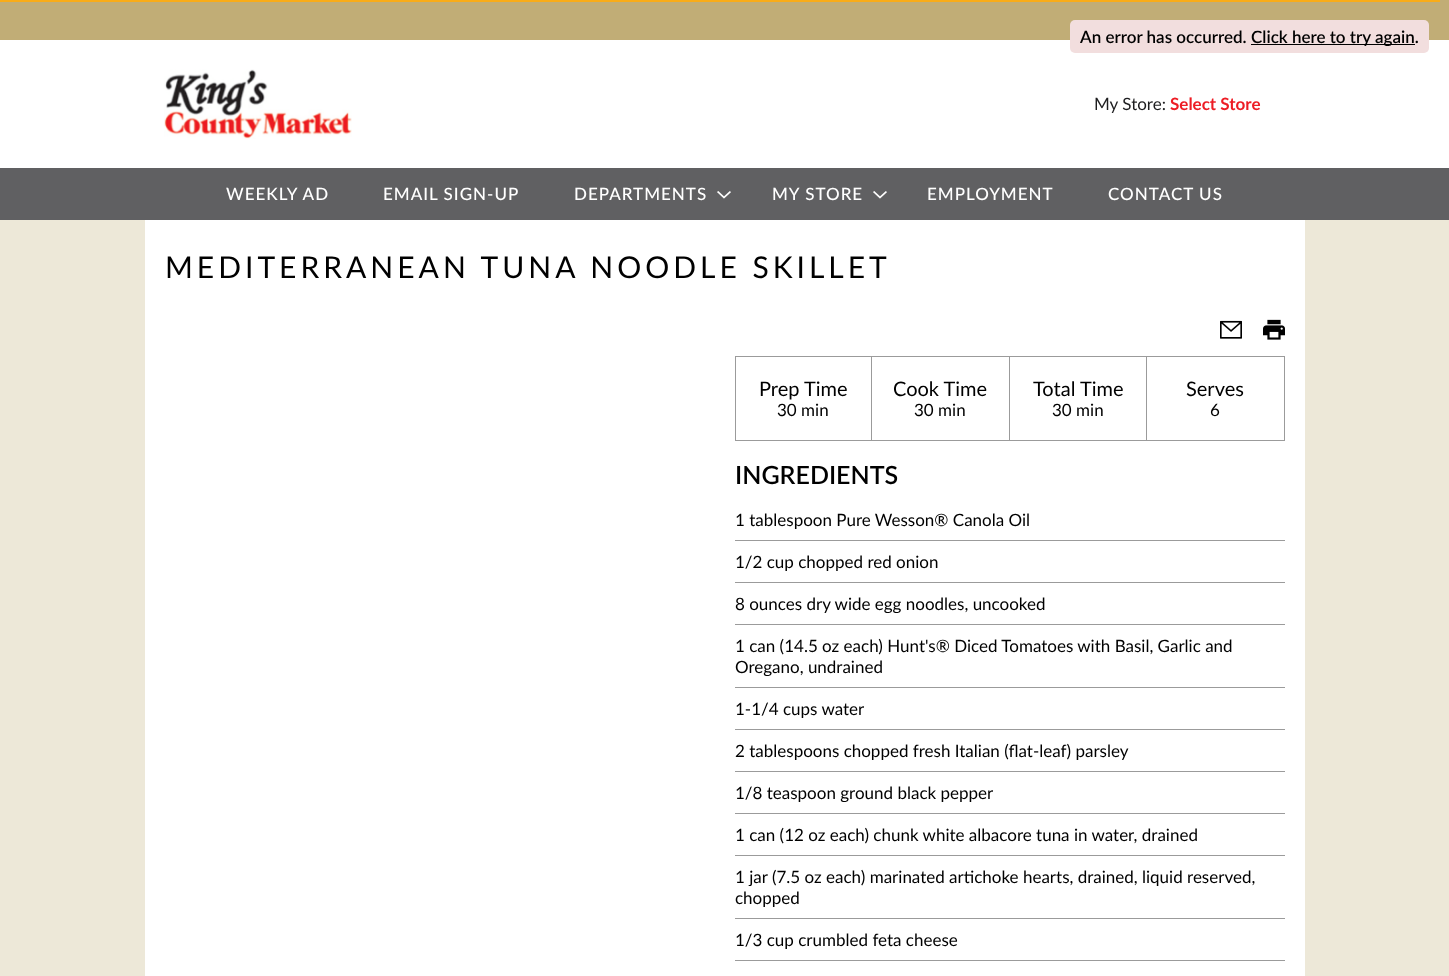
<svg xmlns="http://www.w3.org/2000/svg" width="1449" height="976">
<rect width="100%" height="100%" fill="#ede8d8"/>
<rect width="1449" height="40" fill="#c1ad76"/>
<rect width="1440" height="2" fill="#f9ac18"/>
<rect y="40" width="1449" height="128" fill="#fff"/>
<rect x="1070" y="20" width="359" height="33" rx="5" fill="#f2dede"/>
<text x="1080" y="43" style="font-family:Lato;font-size:17px;font-weight:600;fill:#000">An error has occurred.</text>
<rect x="1251" y="44" width="164" height="1" fill="#000"/>
<text x="1251" y="43" style="font-family:Lato;font-size:17px;font-weight:600;fill:#000">Click here to try again.</text>
<image x="164" y="69" width="188" height="70" href="media/1.png"/>
<text x="1094" y="110" style="font-family:Lato;font-size:17px;fill:#1d1d1f">My Store:</text>
<text x="1170" y="110" style="font-family:Lato;font-size:17px;font-weight:bold;fill:#ed1c24">Select Store</text>
<rect y="168" width="1449" height="52" fill="#606062"/>
<text x="226" y="200" style="font-family:Lato;font-size:17px;font-weight:500;letter-spacing:1px;fill:#fff">WEEKLY AD</text>
<text x="383" y="200" style="font-family:Lato;font-size:17px;font-weight:500;letter-spacing:1px;fill:#fff">EMAIL SIGN-UP</text>
<text x="574" y="200" style="font-family:Lato;font-size:17px;font-weight:500;letter-spacing:1px;fill:#fff">DEPARTMENTS</text>
<image x="717" y="191" width="14" height="8" href="media/2.png"/>
<text x="772" y="200" style="font-family:Lato;font-size:17px;font-weight:500;letter-spacing:1px;fill:#fff">MY STORE</text>
<image x="873" y="191" width="14" height="8" href="media/2.png"/>
<text x="927" y="200" style="font-family:Lato;font-size:17px;font-weight:500;letter-spacing:1px;fill:#fff">EMPLOYMENT</text>
<text x="1108" y="200" style="font-family:Lato;font-size:17px;font-weight:500;letter-spacing:1px;fill:#fff">CONTACT US</text>
<rect x="145" y="220" width="1160" height="756" fill="#fff"/>
<text x="165" y="278" style="font-family:Lato;font-size:30px;letter-spacing:4px;fill:#000">MEDITERRANEAN TUNA NOODLE SKILLET</text>
<image x="1220" y="320" width="22" height="19" href="media/3.png"/>
<image x="1263" y="319" width="22" height="21" href="media/4.png"/>
<rect x="735.5" y="356.5" width="136" height="84" fill="none" stroke="#9b9b9b"/>
<text x="759" y="396" style="font-family:Lato;font-size:20px;fill:#000">Prep Time</text>
<text x="777" y="416" style="font-family:Lato;font-size:17px;fill:#000">30 min</text>
<rect x="872" y="356" width="413" height="1" fill="#9b9b9b"/>
<rect x="1009" y="356" width="1" height="85" fill="#9b9b9b"/>
<rect x="872" y="440" width="138" height="1" fill="#9b9b9b"/>
<text x="893" y="396" style="font-family:Lato;font-size:20px;fill:#000">Cook Time</text>
<text x="914" y="416" style="font-family:Lato;font-size:17px;fill:#000">30 min</text>
<rect x="1146" y="356" width="1" height="85" fill="#9b9b9b"/>
<rect x="1010" y="440" width="137" height="1" fill="#9b9b9b"/>
<text x="1033" y="396" style="font-family:Lato;font-size:20px;fill:#000">Total Time</text>
<text x="1052" y="416" style="font-family:Lato;font-size:17px;fill:#000">30 min</text>
<rect x="1284" y="356" width="1" height="85" fill="#9b9b9b"/>
<rect x="1147" y="440" width="138" height="1" fill="#9b9b9b"/>
<text x="1186" y="396" style="font-family:Lato;font-size:20px;fill:#000">Serves</text>
<text x="1210" y="416" style="font-family:Lato;font-size:17px;fill:#000">6</text>
<text x="735" y="484" style="font-family:Lato;font-size:25px;font-weight:600;fill:#000">INGREDIENTS</text>
<text x="735" y="526" style="font-family:Lato;font-size:17px;fill:#000">1 tablespoon Pure Wesson® Canola Oil</text>
<rect x="735" y="540" width="550" height="1" fill="#9b9b9b"/>
<text x="735" y="568" style="font-family:Lato;font-size:17px;fill:#000">1/2 cup chopped red onion</text>
<rect x="735" y="582" width="550" height="1" fill="#9b9b9b"/>
<text x="735" y="610" style="font-family:Lato;font-size:17px;fill:#000">8 ounces dry wide egg noodles, uncooked</text>
<rect x="735" y="624" width="550" height="1" fill="#9b9b9b"/>
<text x="735" y="652" style="font-family:Lato;font-size:17px;fill:#000">1 can (14.5 oz each) Hunt's® Diced Tomatoes with Basil, Garlic and</text>
<text x="735" y="673" style="font-family:Lato;font-size:17px;fill:#000">Oregano, undrained</text>
<rect x="735" y="687" width="550" height="1" fill="#9b9b9b"/>
<text x="735" y="715" style="font-family:Lato;font-size:17px;fill:#000">1-1/4 cups water</text>
<rect x="735" y="729" width="550" height="1" fill="#9b9b9b"/>
<text x="735" y="757" style="font-family:Lato;font-size:17px;fill:#000">2 tablespoons chopped fresh Italian (flat-leaf) parsley</text>
<rect x="735" y="771" width="550" height="1" fill="#9b9b9b"/>
<text x="735" y="799" style="font-family:Lato;font-size:17px;fill:#000">1/8 teaspoon ground black pepper</text>
<rect x="735" y="813" width="550" height="1" fill="#9b9b9b"/>
<text x="735" y="841" style="font-family:Lato;font-size:17px;fill:#000">1 can (12 oz each) chunk white albacore tuna in water, drained</text>
<rect x="735" y="855" width="550" height="1" fill="#9b9b9b"/>
<text x="735" y="883" style="font-family:Lato;font-size:17px;fill:#000">1 jar (7.5 oz each) marinated artichoke hearts, drained, liquid reserved,</text>
<text x="735" y="904" style="font-family:Lato;font-size:17px;fill:#000">chopped</text>
<rect x="735" y="918" width="550" height="1" fill="#9b9b9b"/>
<text x="735" y="946" style="font-family:Lato;font-size:17px;fill:#000">1/3 cup crumbled feta cheese</text>
<rect x="735" y="960" width="550" height="1" fill="#9b9b9b"/>
</svg>
